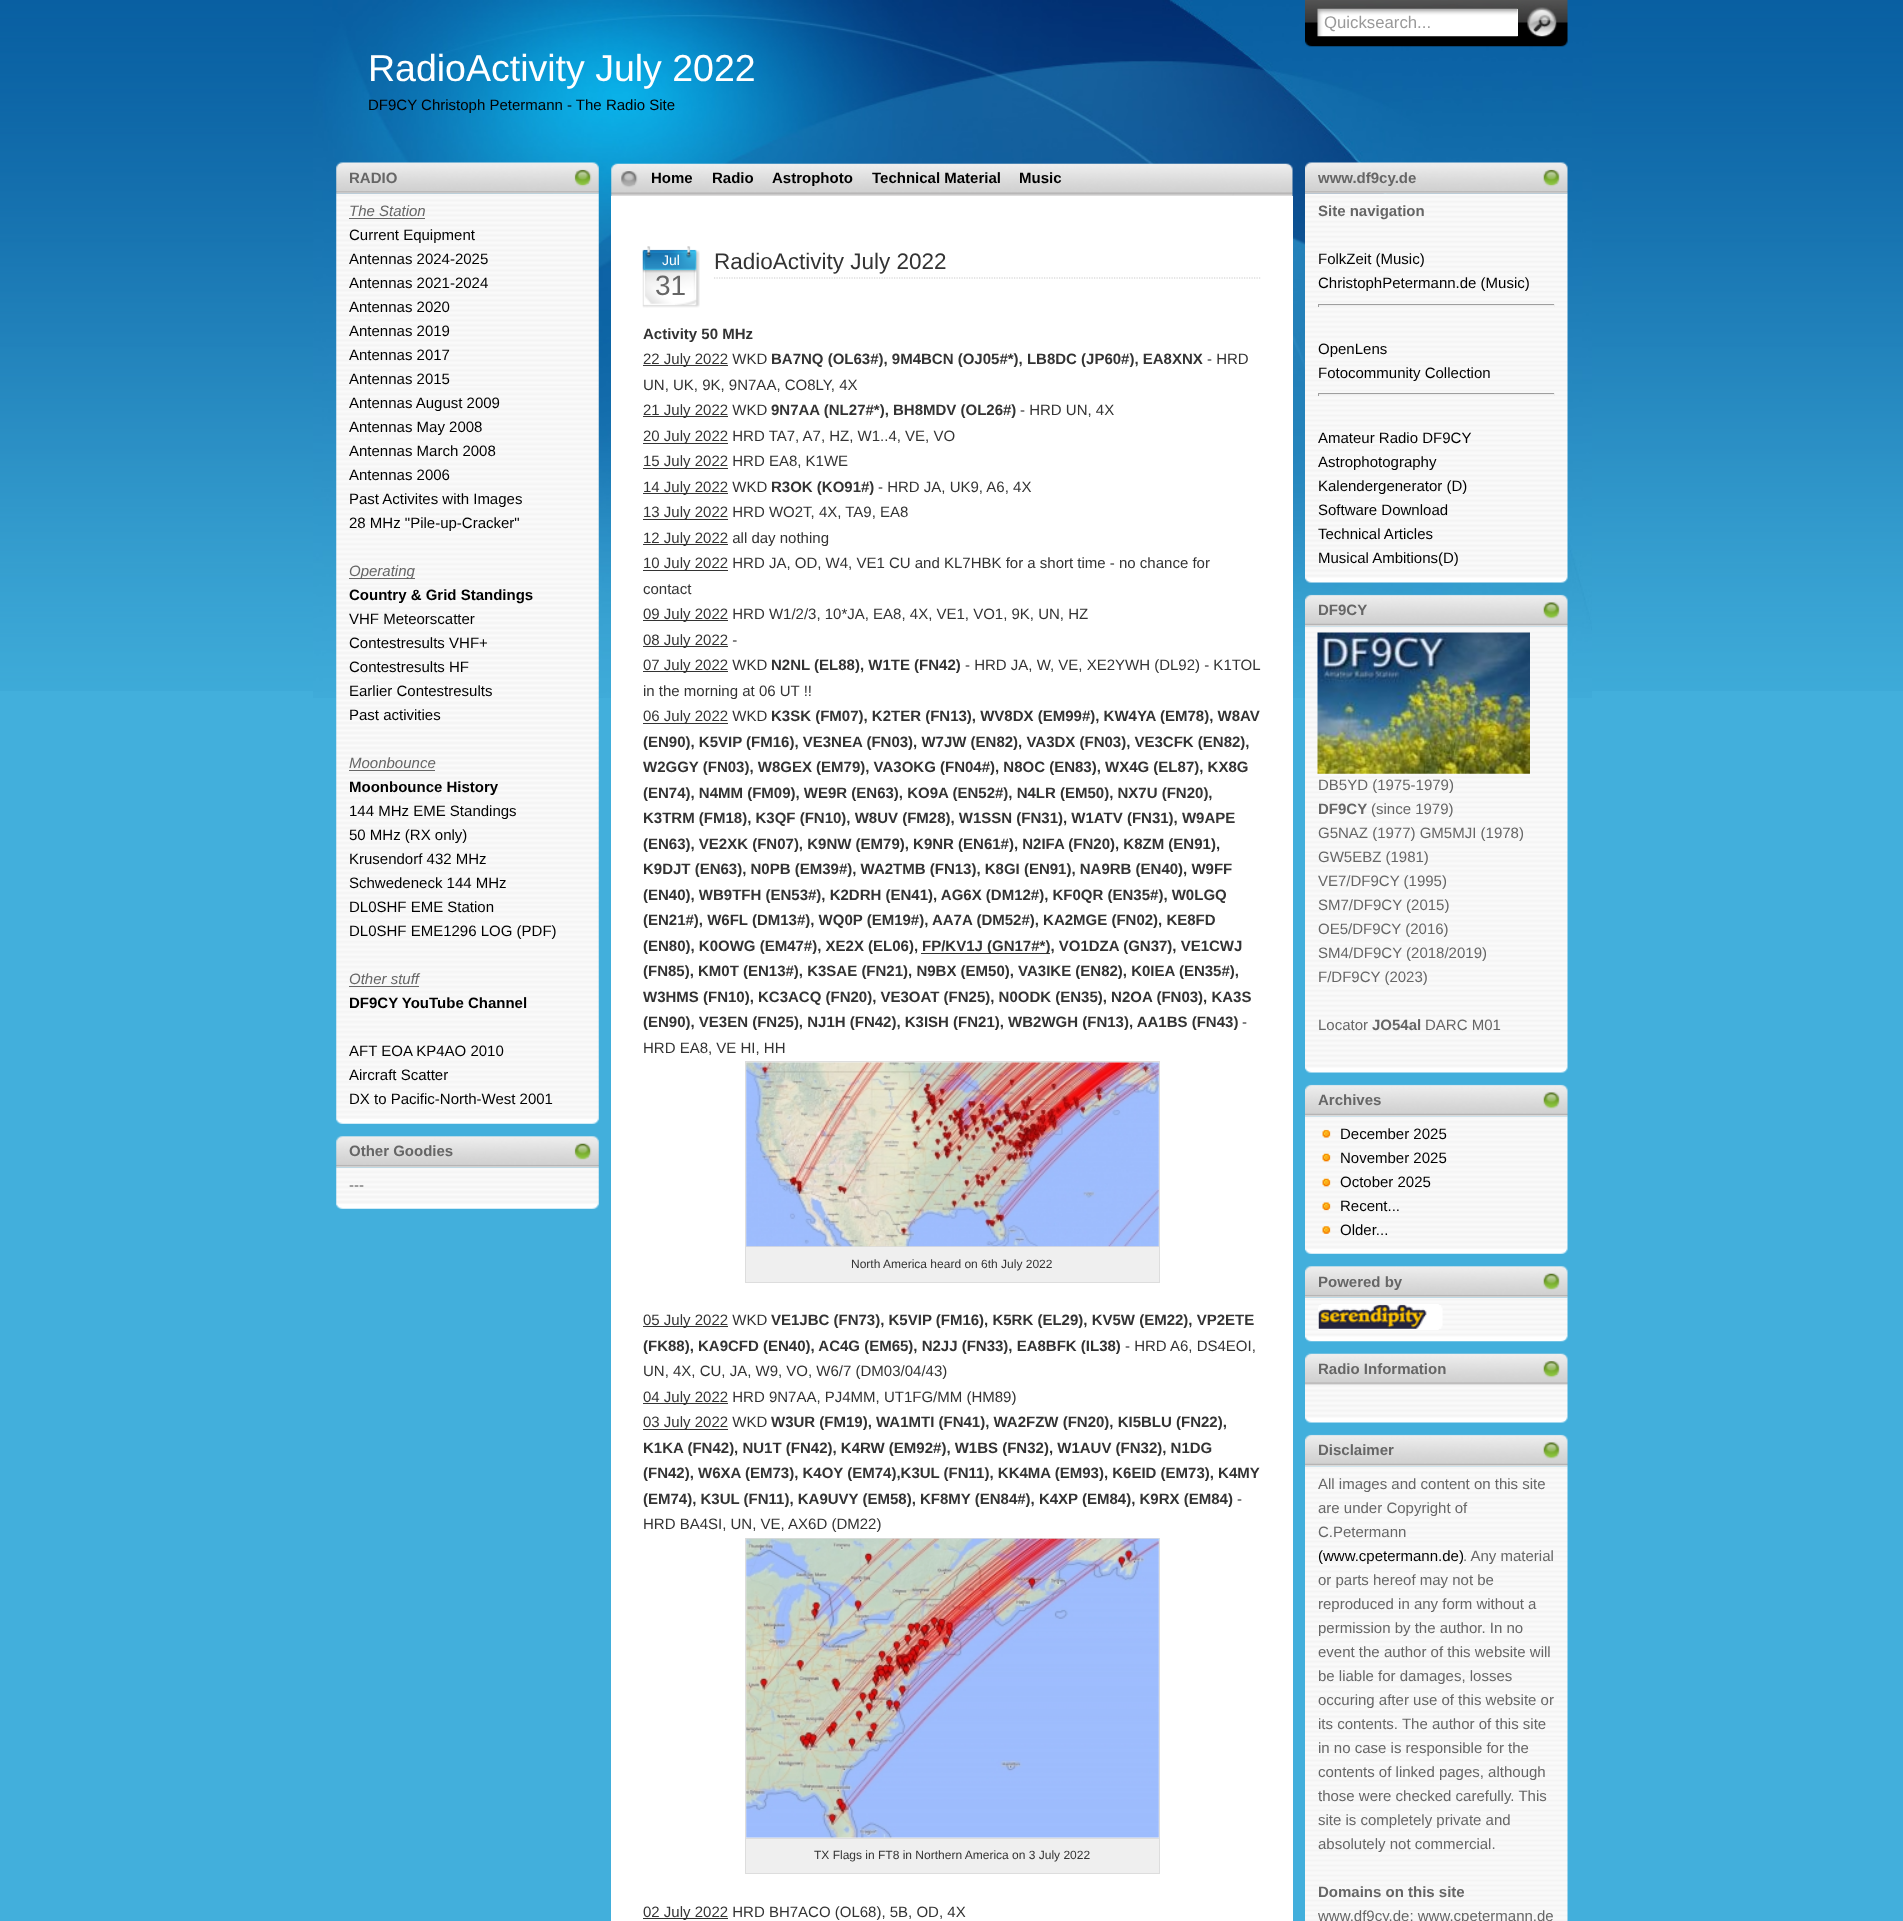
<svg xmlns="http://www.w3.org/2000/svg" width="1903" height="1921">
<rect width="100%" height="100%" fill="#42afdc"/>
<image x="0" y="0" width="1903" height="691" href="media/1.png"/>
<image x="313" y="0" width="1279" height="698" href="media/2.png"/>
<image x="1305" y="0" width="263" height="47" href="media/3.png"/>
<rect x="1517" y="9" width="1" height="27" fill="#fff"/>
<image x="1317" y="8" width="201" height="29" href="media/4.png"/>
<text x="1324" y="28" style="font-family:Liberation Sans;font-size:16.75px;fill:#999">Quicksearch...</text>
<image x="1527" y="7" width="30" height="30" href="media/5.png"/>
<text x="368" y="81" style="font-family:Liberation Sans;font-size:37.5px;fill:#fff">RadioActivity July 2022</text>
<text x="368" y="110" style="font-family:Liberation Sans;font-size:15px;fill:#000">DF9CY Christoph Petermann - The Radio Site</text>
<image x="336" y="193" width="263" height="931" href="media/8.png"/>
<image x="336" y="162" width="263" height="32" href="media/6.png"/>
<text x="349" y="183" style="font-family:Liberation Sans;font-size:15px;font-weight:bold;fill:#666">RADIO</text>
<image x="574" y="169" width="18" height="18" href="media/7.png"/>
<text x="349" y="216" style="font-family:Liberation Sans;font-size:15px;font-style:italic;fill:#666">The Station</text>
<rect x="349" y="218" width="76" height="1" fill="#666"/>
<text x="349" y="240" style="font-family:Liberation Sans;font-size:15px;fill:#000">Current Equipment</text>
<text x="349" y="264" style="font-family:Liberation Sans;font-size:15px;fill:#000">Antennas 2024-2025</text>
<text x="349" y="288" style="font-family:Liberation Sans;font-size:15px;fill:#000">Antennas 2021-2024</text>
<text x="349" y="312" style="font-family:Liberation Sans;font-size:15px;fill:#000">Antennas 2020</text>
<text x="349" y="336" style="font-family:Liberation Sans;font-size:15px;fill:#000">Antennas 2019</text>
<text x="349" y="360" style="font-family:Liberation Sans;font-size:15px;fill:#000">Antennas 2017</text>
<text x="349" y="384" style="font-family:Liberation Sans;font-size:15px;fill:#000">Antennas 2015</text>
<text x="349" y="408" style="font-family:Liberation Sans;font-size:15px;fill:#000">Antennas August 2009</text>
<text x="349" y="432" style="font-family:Liberation Sans;font-size:15px;fill:#000">Antennas May 2008</text>
<text x="349" y="456" style="font-family:Liberation Sans;font-size:15px;fill:#000">Antennas March 2008</text>
<text x="349" y="480" style="font-family:Liberation Sans;font-size:15px;fill:#000">Antennas 2006</text>
<text x="349" y="504" style="font-family:Liberation Sans;font-size:15px;fill:#000">Past Activites with Images</text>
<text x="349" y="528" style="font-family:Liberation Sans;font-size:15px;fill:#000">28 MHz "Pile-up-Cracker"</text>
<rect x="349" y="578" width="66" height="1" fill="#666"/>
<text x="349" y="576" style="font-family:Liberation Sans;font-size:15px;font-style:italic;fill:#666">Operating</text>
<text x="349" y="600" style="font-family:Liberation Sans;font-size:15px;font-weight:bold;fill:#000">Country &amp; Grid Standings</text>
<text x="349" y="624" style="font-family:Liberation Sans;font-size:15px;fill:#000">VHF Meteorscatter</text>
<text x="349" y="648" style="font-family:Liberation Sans;font-size:15px;fill:#000">Contestresults VHF+</text>
<text x="349" y="672" style="font-family:Liberation Sans;font-size:15px;fill:#000">Contestresults HF</text>
<text x="349" y="696" style="font-family:Liberation Sans;font-size:15px;fill:#000">Earlier Contestresults</text>
<text x="349" y="720" style="font-family:Liberation Sans;font-size:15px;fill:#000">Past activities</text>
<text x="349" y="768" style="font-family:Liberation Sans;font-size:15px;font-style:italic;fill:#666">Moonbounce</text>
<rect x="349" y="770" width="86" height="1" fill="#666"/>
<text x="349" y="792" style="font-family:Liberation Sans;font-size:15px;font-weight:bold;fill:#000">Moonbounce History</text>
<text x="349" y="816" style="font-family:Liberation Sans;font-size:15px;fill:#000">144 MHz EME Standings</text>
<text x="349" y="840" style="font-family:Liberation Sans;font-size:15px;fill:#000">50 MHz (RX only)</text>
<text x="349" y="864" style="font-family:Liberation Sans;font-size:15px;fill:#000">Krusendorf 432 MHz</text>
<text x="349" y="888" style="font-family:Liberation Sans;font-size:15px;fill:#000">Schwedeneck 144 MHz</text>
<text x="349" y="912" style="font-family:Liberation Sans;font-size:15px;fill:#000">DL0SHF EME Station</text>
<text x="349" y="936" style="font-family:Liberation Sans;font-size:15px;fill:#000">DL0SHF EME1296 LOG (PDF)</text>
<text x="349" y="984" style="font-family:Liberation Sans;font-size:15px;font-style:italic;fill:#666">Other stuff</text>
<rect x="349" y="986" width="70" height="1" fill="#666"/>
<text x="349" y="1008" style="font-family:Liberation Sans;font-size:15px;font-weight:bold;fill:#000">DF9CY YouTube Channel</text>
<text x="349" y="1056" style="font-family:Liberation Sans;font-size:15px;fill:#000">AFT EOA KP4AO 2010</text>
<text x="349" y="1080" style="font-family:Liberation Sans;font-size:15px;fill:#000">Aircraft Scatter</text>
<text x="349" y="1104" style="font-family:Liberation Sans;font-size:15px;fill:#000">DX to Pacific-North-West 2001</text>
<image x="336" y="1167" width="263" height="42" href="media/11.png"/>
<image x="336" y="1136" width="263" height="32" href="media/9.png"/>
<text x="349" y="1156" style="font-family:Liberation Sans;font-size:15px;font-weight:bold;fill:#666">Other Goodies</text>
<image x="574" y="1143" width="18" height="17" href="media/10.png"/>
<text x="349" y="1190" style="font-family:Liberation Sans;font-size:15px;fill:#666">---</text>
<image x="611" y="163" width="682" height="33" href="media/12.png"/>
<text x="651" y="183" style="font-family:Liberation Sans;font-size:15px;font-weight:bold;fill:#000">Home</text>
<text x="712" y="183" style="font-family:Liberation Sans;font-size:15px;font-weight:bold;fill:#000">Radio</text>
<text x="772" y="183" style="font-family:Liberation Sans;font-size:15px;font-weight:bold;fill:#000">Astrophoto</text>
<text x="872" y="183" style="font-family:Liberation Sans;font-size:15px;font-weight:bold;fill:#000">Technical Material</text>
<text x="1019" y="183" style="font-family:Liberation Sans;font-size:15px;font-weight:bold;fill:#000">Music</text>
<rect x="611" y="196" width="682" height="1725" fill="#fff"/>
<image x="642" y="246" width="58" height="62" href="media/13.png"/>
<text x="662" y="265" style="font-family:Liberation Sans;font-size:14px;fill:#fff">Jul</text>
<text x="655" y="295" style="font-family:Liberation Sans;font-size:28px;fill:#666">31</text>
<path d="M714 278h547" fill="none" stroke="#ccc" stroke-width="1.2" stroke-dasharray="1.25 1.25"/>
<text x="714" y="269" style="font-family:Liberation Sans;font-size:22.5px;fill:#333">RadioActivity July 2022</text>
<text x="643" y="339" style="font-family:Liberation Sans;font-size:15px;font-weight:bold;fill:#333">Activity 50 MHz</text>
<rect x="643" y="365" width="85" height="1" fill="#333"/>
<text x="643" y="364" style="font-family:Liberation Sans;font-size:15px;fill:#333">22 July 2022 WKD</text>
<text x="771" y="364" style="font-family:Liberation Sans;font-size:15px;font-weight:bold;fill:#333">BA7NQ (OL63#), 9M4BCN (OJ05#*), LB8DC (JP60#), EA8XNX</text>
<text x="1207" y="364" style="font-family:Liberation Sans;font-size:15px;fill:#333">- HRD</text>
<text x="643" y="390" style="font-family:Liberation Sans;font-size:15px;fill:#333">UN, UK, 9K, 9N7AA, CO8LY, 4X</text>
<rect x="643" y="416" width="85" height="1" fill="#333"/>
<text x="643" y="415" style="font-family:Liberation Sans;font-size:15px;fill:#333">21 July 2022 WKD</text>
<text x="771" y="415" style="font-family:Liberation Sans;font-size:15px;font-weight:bold;fill:#333">9N7AA (NL27#*), BH8MDV (OL26#)</text>
<text x="1020" y="415" style="font-family:Liberation Sans;font-size:15px;fill:#333">- HRD UN, 4X</text>
<rect x="643" y="443" width="85" height="1" fill="#333"/>
<text x="643" y="441" style="font-family:Liberation Sans;font-size:15px;fill:#333">20 July 2022 HRD TA7, A7, HZ, W1..4, VE, VO</text>
<rect x="643" y="468" width="85" height="1" fill="#333"/>
<text x="643" y="466" style="font-family:Liberation Sans;font-size:15px;fill:#333">15 July 2022 HRD EA8, K1WE</text>
<rect x="643" y="493" width="85" height="1" fill="#333"/>
<text x="643" y="492" style="font-family:Liberation Sans;font-size:15px;fill:#333">14 July 2022 WKD</text>
<text x="771" y="492" style="font-family:Liberation Sans;font-size:15px;font-weight:bold;fill:#333">R3OK (KO91#)</text>
<text x="878" y="492" style="font-family:Liberation Sans;font-size:15px;fill:#333">- HRD JA, UK9, A6, 4X</text>
<rect x="643" y="519" width="85" height="1" fill="#333"/>
<text x="643" y="517" style="font-family:Liberation Sans;font-size:15px;fill:#333">13 July 2022 HRD WO2T, 4X, TA9, EA8</text>
<rect x="643" y="544" width="85" height="1" fill="#333"/>
<text x="643" y="543" style="font-family:Liberation Sans;font-size:15px;fill:#333">12 July 2022 all day nothing</text>
<rect x="643" y="570" width="85" height="1" fill="#333"/>
<text x="643" y="568" style="font-family:Liberation Sans;font-size:15px;fill:#333">10 July 2022 HRD JA, OD, W4, VE1 CU and KL7HBK for a short time - no chance for</text>
<text x="643" y="594" style="font-family:Liberation Sans;font-size:15px;fill:#333">contact</text>
<rect x="643" y="620" width="85" height="1" fill="#333"/>
<text x="643" y="619" style="font-family:Liberation Sans;font-size:15px;fill:#333">09 July 2022 HRD W1/2/3, 10*JA, EA8, 4X, VE1, VO1, 9K, UN, HZ</text>
<rect x="643" y="646" width="85" height="1" fill="#333"/>
<text x="643" y="645" style="font-family:Liberation Sans;font-size:15px;fill:#333">08 July 2022 -</text>
<rect x="643" y="671" width="85" height="1" fill="#333"/>
<text x="643" y="670" style="font-family:Liberation Sans;font-size:15px;fill:#333">07 July 2022 WKD</text>
<text x="771" y="670" style="font-family:Liberation Sans;font-size:15px;font-weight:bold;fill:#333">N2NL (EL88), W1TE (FN42)</text>
<text x="965" y="670" style="font-family:Liberation Sans;font-size:15px;fill:#333">- HRD JA, W, VE, XE2YWH (DL92) - K1TOL</text>
<text x="643" y="696" style="font-family:Liberation Sans;font-size:15px;fill:#333">in the morning at 06 UT !!</text>
<rect x="643" y="723" width="85" height="1" fill="#333"/>
<text x="643" y="721" style="font-family:Liberation Sans;font-size:15px;fill:#333">06 July 2022 WKD</text>
<text x="771" y="721" style="font-family:Liberation Sans;font-size:15px;font-weight:bold;fill:#333">K3SK (FM07), K2TER (FN13), WV8DX (EM99#), KW4YA (EM78), W8AV</text>
<text x="643" y="747" style="font-family:Liberation Sans;font-size:15px;font-weight:bold;fill:#333">(EN90), K5VIP (FM16), VE3NEA (FN03), W7JW (EN82), VA3DX (FN03), VE3CFK (EN82),</text>
<text x="643" y="772" style="font-family:Liberation Sans;font-size:15px;font-weight:bold;fill:#333">W2GGY (FN03), W8GEX (EM79), VA3OKG (FN04#), N8OC (EN83), WX4G (EL87), KX8G</text>
<text x="643" y="798" style="font-family:Liberation Sans;font-size:15px;font-weight:bold;fill:#333">(EN74), N4MM (FM09), WE9R (EN63), KO9A (EN52#), N4LR (EM50), NX7U (FN20),</text>
<text x="643" y="823" style="font-family:Liberation Sans;font-size:15px;font-weight:bold;fill:#333">K3TRM (FM18), K3QF (FN10), W8UV (FM28), W1SSN (FN31), W1ATV (FN31), W9APE</text>
<text x="643" y="849" style="font-family:Liberation Sans;font-size:15px;font-weight:bold;fill:#333">(EN63), VE2XK (FN07), K9NW (EM79), K9NR (EN61#), N2IFA (FN20), K8ZM (EN91),</text>
<text x="643" y="874" style="font-family:Liberation Sans;font-size:15px;font-weight:bold;fill:#333">K9DJT (EN63), N0PB (EM39#), WA2TMB (FN13), K8GI (EN91), NA9RB (EN40), W9FF</text>
<text x="643" y="900" style="font-family:Liberation Sans;font-size:15px;font-weight:bold;fill:#333">(EN40), WB9TFH (EN53#), K2DRH (EN41), AG6X (DM12#), KF0QR (EN35#), W0LGQ</text>
<text x="643" y="925" style="font-family:Liberation Sans;font-size:15px;font-weight:bold;fill:#333">(EN21#), W6FL (DM13#), WQ0P (EM19#), AA7A (DM52#), KA2MGE (FN02), KE8FD</text>
<text x="643" y="951" style="font-family:Liberation Sans;font-size:15px;font-weight:bold;fill:#333">(EN80), K0OWG (EM47#), XE2X (EL06),</text>
<rect x="921" y="953" width="129" height="1" fill="#333"/>
<text x="922" y="951" style="font-family:Liberation Sans;font-size:15px;font-weight:bold;fill:#333">FP/KV1J (GN17#*), VO1DZA (GN37), VE1CWJ</text>
<text x="643" y="976" style="font-family:Liberation Sans;font-size:15px;font-weight:bold;fill:#333">(FN85), KM0T (EN13#), K3SAE (FN21), N9BX (EM50), VA3IKE (EN82), K0IEA (EN35#),</text>
<text x="643" y="1002" style="font-family:Liberation Sans;font-size:15px;font-weight:bold;fill:#333">W3HMS (FN10), KC3ACQ (FN20), VE3OAT (FN25), N0ODK (EN35), N2OA (FN03), KA3S</text>
<text x="643" y="1027" style="font-family:Liberation Sans;font-size:15px;font-weight:bold;fill:#333">(EN90), VE3EN (FN25), NJ1H (FN42), K3ISH (FN21), WB2WGH (FN13), AA1BS (FN43)</text>
<text x="1242" y="1027" style="font-family:Liberation Sans;font-size:15px;fill:#333">-</text>
<text x="643" y="1053" style="font-family:Liberation Sans;font-size:15px;fill:#333">HRD EA8, VE HI, HH</text>
<rect x="745.5" y="1061.5" width="414" height="221" fill="#efefef" stroke="#ddd"/>
<rect x="746" y="1246" width="413" height="1" fill="#ddd"/>
<image x="746" y="1062" width="413" height="185" href="media/14.png"/>
<text x="851" y="1268" style="font-family:Liberation Sans;font-size:12px;fill:#333">North America heard on 6th July 2022</text>
<rect x="643" y="1326" width="85" height="1" fill="#333"/>
<text x="643" y="1325" style="font-family:Liberation Sans;font-size:15px;fill:#333">05 July 2022 WKD</text>
<text x="771" y="1325" style="font-family:Liberation Sans;font-size:15px;font-weight:bold;fill:#333">VE1JBC (FN73), K5VIP (FM16), K5RK (EL29), KV5W (EM22), VP2ETE</text>
<text x="643" y="1351" style="font-family:Liberation Sans;font-size:15px;font-weight:bold;fill:#333">(FK88), KA9CFD (EN40), AC4G (EM65), N2JJ (FN33), EA8BFK (IL38)</text>
<text x="1125" y="1351" style="font-family:Liberation Sans;font-size:15px;fill:#333">- HRD A6, DS4EOI,</text>
<text x="643" y="1376" style="font-family:Liberation Sans;font-size:15px;fill:#333">UN, 4X, CU, JA, W9, VO, W6/7 (DM03/04/43)</text>
<rect x="643" y="1403" width="85" height="1" fill="#333"/>
<text x="643" y="1402" style="font-family:Liberation Sans;font-size:15px;fill:#333">04 July 2022 HRD 9N7AA, PJ4MM, UT1FG/MM (HM89)</text>
<rect x="643" y="1429" width="85" height="1" fill="#333"/>
<text x="643" y="1427" style="font-family:Liberation Sans;font-size:15px;fill:#333">03 July 2022 WKD</text>
<text x="771" y="1427" style="font-family:Liberation Sans;font-size:15px;font-weight:bold;fill:#333">W3UR (FM19), WA1MTI (FN41), WA2FZW (FN20), KI5BLU (FN22),</text>
<text x="643" y="1453" style="font-family:Liberation Sans;font-size:15px;font-weight:bold;fill:#333">K1KA (FN42), NU1T (FN42), K4RW (EM92#), W1BS (FN32), W1AUV (FN32), N1DG</text>
<text x="643" y="1478" style="font-family:Liberation Sans;font-size:15px;font-weight:bold;fill:#333">(FN42), W6XA (EM73), K4OY (EM74),K3UL (FN11), KK4MA (EM93), K6EID (EM73), K4MY</text>
<text x="643" y="1504" style="font-family:Liberation Sans;font-size:15px;font-weight:bold;fill:#333">(EM74), K3UL (FN11), KA9UVY (EM58), KF8MY (EN84#), K4XP (EM84), K9RX (EM84)</text>
<text x="1237" y="1504" style="font-family:Liberation Sans;font-size:15px;fill:#333">-</text>
<text x="643" y="1529" style="font-family:Liberation Sans;font-size:15px;fill:#333">HRD BA4SI, UN, VE, AX6D (DM22)</text>
<rect x="745.5" y="1538.5" width="414" height="335" fill="#efefef" stroke="#ddd"/>
<image x="746" y="1538" width="413" height="300" href="media/15.png"/>
<rect x="746" y="1838" width="413" height="1" fill="#ddd"/>
<text x="814" y="1859" style="font-family:Liberation Sans;font-size:12px;fill:#333">TX Flags in FT8 in Northern America on 3 July 2022</text>
<rect x="643" y="1918" width="85" height="1" fill="#333"/>
<text x="643" y="1917" style="font-family:Liberation Sans;font-size:15px;fill:#333">02 July 2022 HRD BH7ACO (OL68), 5B, OD, 4X</text>
<image x="1305" y="193" width="263" height="390" href="media/18.png"/>
<image x="1305" y="162" width="263" height="32" href="media/16.png"/>
<text x="1318" y="183" style="font-family:Liberation Sans;font-size:15px;font-weight:bold;fill:#666">www.df9cy.de</text>
<image x="1543" y="169" width="17" height="18" href="media/17.png"/>
<text x="1318" y="216" style="font-family:Liberation Sans;font-size:15px;font-weight:bold;fill:#666">Site navigation</text>
<text x="1318" y="264" style="font-family:Liberation Sans;font-size:15px;fill:#000">FolkZeit (Music)</text>
<text x="1318" y="288" style="font-family:Liberation Sans;font-size:15px;fill:#000">ChristophPetermann.de (Music)</text>
<rect x="1318" y="304" width="237" height="1" fill="#9f9f9f"/>
<rect x="1554" y="304" width="1" height="3" fill="#eee"/>
<rect x="1318" y="305" width="237" height="1" fill="#eee"/>
<rect x="1318" y="304" width="1" height="3" fill="#9f9f9f"/>
<text x="1318" y="354" style="font-family:Liberation Sans;font-size:15px;fill:#000">OpenLens</text>
<text x="1318" y="378" style="font-family:Liberation Sans;font-size:15px;fill:#000">Fotocommunity Collection</text>
<rect x="1318" y="393" width="237" height="1" fill="#9f9f9f"/>
<rect x="1554" y="393" width="1" height="3" fill="#eee"/>
<rect x="1318" y="394" width="237" height="1" fill="#eee"/>
<rect x="1318" y="393" width="1" height="3" fill="#9f9f9f"/>
<text x="1318" y="443" style="font-family:Liberation Sans;font-size:15px;fill:#000">Amateur Radio DF9CY</text>
<text x="1318" y="467" style="font-family:Liberation Sans;font-size:15px;fill:#000">Astrophotography</text>
<text x="1318" y="491" style="font-family:Liberation Sans;font-size:15px;fill:#000">Kalendergenerator (D)</text>
<text x="1318" y="515" style="font-family:Liberation Sans;font-size:15px;fill:#000">Software Download</text>
<text x="1318" y="539" style="font-family:Liberation Sans;font-size:15px;fill:#000">Technical Articles</text>
<text x="1318" y="563" style="font-family:Liberation Sans;font-size:15px;fill:#000">Musical Ambitions(D)</text>
<image x="1305" y="626" width="263" height="447" href="media/21.png"/>
<image x="1305" y="594" width="263" height="33" href="media/19.png"/>
<text x="1318" y="615" style="font-family:Liberation Sans;font-size:15px;font-weight:bold;fill:#666">DF9CY</text>
<image x="1543" y="602" width="17" height="17" href="media/20.png"/>
<image x="1317" y="632" width="213" height="142" href="media/22.png"/>
<text x="1318" y="790" style="font-family:Liberation Sans;font-size:15px;fill:#666">DB5YD (1975-1979)</text>
<text x="1318" y="814" style="font-family:Liberation Sans;font-size:15px;font-weight:bold;fill:#666">DF9CY</text>
<text x="1371" y="814" style="font-family:Liberation Sans;font-size:15px;fill:#666">(since 1979)</text>
<text x="1318" y="838" style="font-family:Liberation Sans;font-size:15px;fill:#666">G5NAZ (1977) GM5MJI (1978)</text>
<text x="1318" y="862" style="font-family:Liberation Sans;font-size:15px;fill:#666">GW5EBZ (1981)</text>
<text x="1318" y="886" style="font-family:Liberation Sans;font-size:15px;fill:#666">VE7/DF9CY (1995)</text>
<text x="1318" y="910" style="font-family:Liberation Sans;font-size:15px;fill:#666">SM7/DF9CY (2015)</text>
<text x="1318" y="934" style="font-family:Liberation Sans;font-size:15px;fill:#666">OE5/DF9CY (2016)</text>
<text x="1318" y="958" style="font-family:Liberation Sans;font-size:15px;fill:#666">SM4/DF9CY (2018/2019)</text>
<text x="1318" y="982" style="font-family:Liberation Sans;font-size:15px;fill:#666">F/DF9CY (2023)</text>
<text x="1318" y="1030" style="font-family:Liberation Sans;font-size:15px;fill:#666">Locator</text>
<text x="1372" y="1030" style="font-family:Liberation Sans;font-size:15px;font-weight:bold;fill:#666">JO54al</text>
<text x="1425" y="1030" style="font-family:Liberation Sans;font-size:15px;fill:#666">DARC M01</text>
<image x="1305" y="1116" width="263" height="138" href="media/25.png"/>
<image x="1305" y="1084" width="263" height="33" href="media/23.png"/>
<text x="1318" y="1105" style="font-family:Liberation Sans;font-size:15px;font-weight:bold;fill:#666">Archives</text>
<image x="1543" y="1092" width="17" height="17" href="media/24.png"/>
<image x="1322" y="1129" width="9" height="9" href="media/26.png"/>
<text x="1340" y="1139" style="font-family:Liberation Sans;font-size:15px;fill:#000">December 2025</text>
<image x="1322" y="1153" width="9" height="9" href="media/27.png"/>
<text x="1340" y="1163" style="font-family:Liberation Sans;font-size:15px;fill:#000">November 2025</text>
<image x="1322" y="1178" width="9" height="9" href="media/28.png"/>
<text x="1340" y="1187" style="font-family:Liberation Sans;font-size:15px;fill:#000">October 2025</text>
<image x="1322" y="1202" width="9" height="9" href="media/29.png"/>
<text x="1340" y="1211" style="font-family:Liberation Sans;font-size:15px;fill:#000">Recent...</text>
<image x="1322" y="1226" width="9" height="8" href="media/30.png"/>
<text x="1340" y="1235" style="font-family:Liberation Sans;font-size:15px;fill:#000">Older...</text>
<image x="1305" y="1297" width="263" height="45" href="media/33.png"/>
<image x="1305" y="1266" width="263" height="32" href="media/31.png"/>
<text x="1318" y="1287" style="font-family:Liberation Sans;font-size:15px;font-weight:bold;fill:#666">Powered by</text>
<image x="1543" y="1273" width="17" height="17" href="media/32.png"/>
<image x="1318" y="1304" width="125" height="26" href="media/34.png"/>
<image x="1305" y="1353" width="263" height="32" href="media/35.png"/>
<text x="1318" y="1374" style="font-family:Liberation Sans;font-size:15px;font-weight:bold;fill:#666">Radio Information</text>
<image x="1543" y="1361" width="17" height="17" href="media/36.png"/>
<image x="1305" y="1385" width="263" height="38" href="media/37.png"/>
<image x="1305" y="1466" width="263" height="455" href="media/39.png"/>
<image x="1305" y="1434" width="263" height="33" href="media/38.png"/>
<text x="1318" y="1455" style="font-family:Liberation Sans;font-size:15px;font-weight:bold;fill:#666">Disclaimer</text>
<image x="1543" y="1442" width="17" height="17" href="media/24.png"/>
<text x="1318" y="1489" style="font-family:Liberation Sans;font-size:15px;fill:#666">All images and content on this site</text>
<text x="1318" y="1513" style="font-family:Liberation Sans;font-size:15px;fill:#666">are under Copyright of</text>
<text x="1318" y="1537" style="font-family:Liberation Sans;font-size:15px;fill:#666">C.Petermann</text>
<text x="1318" y="1561" style="font-family:Liberation Sans;font-size:15px;fill:#000">(www.cpetermann.de)</text>
<text x="1463" y="1561" style="font-family:Liberation Sans;font-size:15px;fill:#666">. Any material</text>
<text x="1318" y="1585" style="font-family:Liberation Sans;font-size:15px;fill:#666">or parts hereof may not be</text>
<text x="1318" y="1609" style="font-family:Liberation Sans;font-size:15px;fill:#666">reproduced in any form without a</text>
<text x="1318" y="1633" style="font-family:Liberation Sans;font-size:15px;fill:#666">permission by the author. In no</text>
<text x="1318" y="1657" style="font-family:Liberation Sans;font-size:15px;fill:#666">event the author of this website will</text>
<text x="1318" y="1681" style="font-family:Liberation Sans;font-size:15px;fill:#666">be liable for damages, losses</text>
<text x="1318" y="1705" style="font-family:Liberation Sans;font-size:15px;fill:#666">occuring after use of this website or</text>
<text x="1318" y="1729" style="font-family:Liberation Sans;font-size:15px;fill:#666">its contents. The author of this site</text>
<text x="1318" y="1753" style="font-family:Liberation Sans;font-size:15px;fill:#666">in no case is responsible for the</text>
<text x="1318" y="1777" style="font-family:Liberation Sans;font-size:15px;fill:#666">contents of linked pages, although</text>
<text x="1318" y="1801" style="font-family:Liberation Sans;font-size:15px;fill:#666">those were checked carefully. This</text>
<text x="1318" y="1825" style="font-family:Liberation Sans;font-size:15px;fill:#666">site is completely private and</text>
<text x="1318" y="1849" style="font-family:Liberation Sans;font-size:15px;fill:#666">absolutely not commercial.</text>
<text x="1318" y="1897" style="font-family:Liberation Sans;font-size:15px;font-weight:bold;fill:#666">Domains on this site</text>
<text x="1318" y="1921" style="font-family:Liberation Sans;font-size:15px;fill:#666">www.df9cy.de; www.cpetermann.de</text>
</svg>
